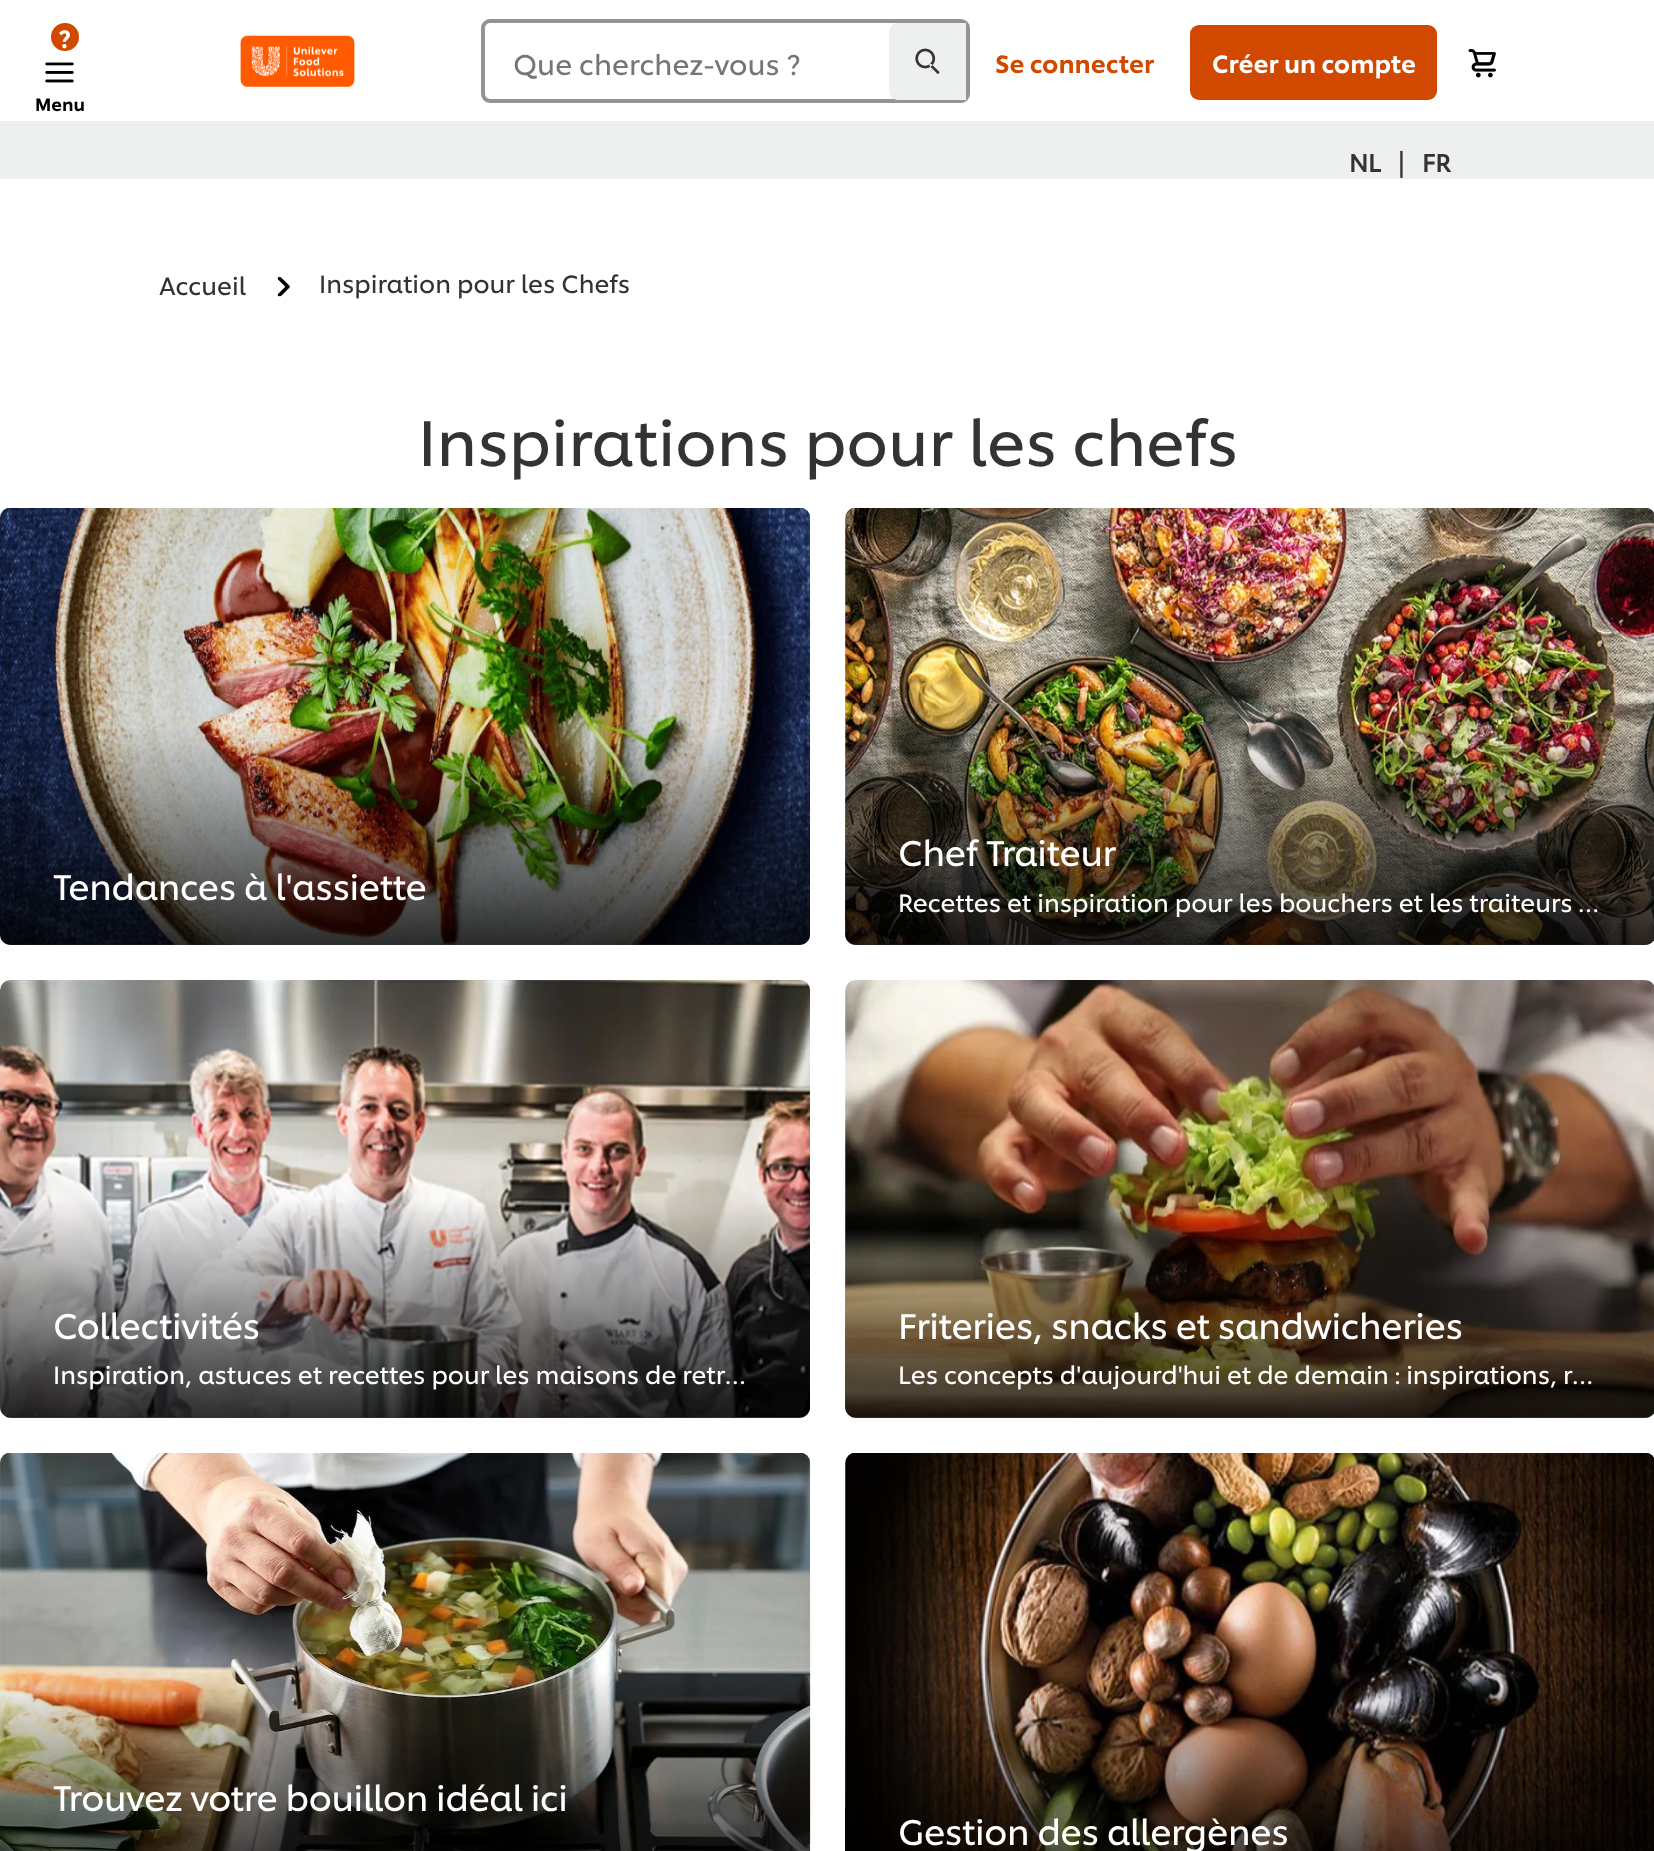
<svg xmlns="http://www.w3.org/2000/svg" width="1654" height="1851">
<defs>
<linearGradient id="g1" gradientUnits="userSpaceOnUse" x1="405" y1="726" x2="405" y2="945"><stop offset="0" stop-color="#000" stop-opacity="0"/><stop offset="1" stop-color="#000" stop-opacity="0.8"/></linearGradient>
<linearGradient id="g2" gradientUnits="userSpaceOnUse" x1="1250" y1="726" x2="1250" y2="945"><stop offset="0" stop-color="#000" stop-opacity="0"/><stop offset="1" stop-color="#000" stop-opacity="0.8"/></linearGradient>
<clipPath id="clip1"><rect x="898" y="884" width="705" height="33"/></clipPath>
<linearGradient id="g3" gradientUnits="userSpaceOnUse" x1="405" y1="1199" x2="405" y2="1418"><stop offset="0" stop-color="#000" stop-opacity="0"/><stop offset="1" stop-color="#000" stop-opacity="0.8"/></linearGradient>
<linearGradient id="g4" gradientUnits="userSpaceOnUse" x1="1250" y1="1199" x2="1250" y2="1418"><stop offset="0" stop-color="#000" stop-opacity="0"/><stop offset="1" stop-color="#000" stop-opacity="0.8"/></linearGradient>
<linearGradient id="g5" gradientUnits="userSpaceOnUse" x1="1250" y1="1671" x2="1250" y2="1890"><stop offset="0" stop-color="#000" stop-opacity="0"/><stop offset="1" stop-color="#000" stop-opacity="0.8"/></linearGradient>
</defs>
<rect width="100%" height="100%" fill="#fff"/>
<circle cx="65" cy="37" r="15" fill="#d14900" stroke="#fff" stroke-width="2"/>
<text x="58" y="48" style="font-family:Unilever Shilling;font-size:24.5px;font-weight:500;fill:#fff">?</text>
<image x="45" y="62" width="29" height="21" href="media/1.png"/>
<text x="35" y="111" style="font-family:Unilever Shilling;font-size:17.5px;font-weight:500;fill:#000">Menu</text>
<image x="240" y="35" width="115" height="52" href="media/2.png"/>
<rect x="483" y="21" width="485" height="80" rx="7" fill="none" stroke="#949494" stroke-width="4"/>
<text x="513" y="75" style="font-family:Unilever Shilling;font-size:28px;fill:#757575">Que cherchez-vous ?</text>
<path d="M898 23h68v77h-68c-5 0-9-4-9-9v-59c0-5 4-9 9-9z" fill="#eeefef"/>
<image x="915" y="48" width="25" height="26" href="media/3.png"/>
<text x="995" y="73" style="font-family:Unilever Shilling;font-size:24.5px;font-weight:500;fill:#d14900">Se connecter</text>
<rect x="1190" y="25" width="247" height="75" rx="9" fill="#d14900"/>
<text x="1212" y="73" style="font-family:Unilever Shilling;font-size:24.5px;font-weight:500;fill:#fff">Créer un compte</text>
<image x="1468" y="49" width="28" height="29" href="media/4.png"/>
<rect y="121" width="1654" height="58" fill="#eeefef"/>
<text x="1349" y="172" style="font-family:Unilever Shilling;font-size:24.5px;font-weight:bold;fill:#333">NL</text>
<text x="1398" y="172" style="font-family:Unilever Shilling;font-size:28px;fill:#333">|</text>
<text x="1422" y="172" style="font-family:Unilever Shilling;font-size:24.5px;font-weight:bold;fill:#333">FR</text>
<text x="159" y="295" style="font-family:Unilever Shilling;font-size:24.5px;fill:#333">Accueil</text>
<image x="277" y="277" width="13" height="20" href="media/5.png"/>
<text x="319" y="293" style="font-family:Unilever Shilling;font-size:24.5px;fill:#333">Inspiration pour les Chefs</text>
<text x="418" y="466" style="font-family:Unilever Shilling;font-size:63px;fill:#333">Inspirations pour les chefs</text>
<image x="0" y="508" width="810" height="437" href="media/6.png"/>
<path d="M0 726h810v208c0 6-5 11-11 11h-788c-6 0-11-5-11-11z" fill="url(#g1)"/>
<text x="53" y="900" style="font-family:Unilever Shilling;font-size:35px;letter-spacing:-0.35px;fill:#fff">Tendances à l'assiette</text>
<image x="845" y="508" width="809" height="437" href="media/7.png"/>
<path d="M845 726h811v208c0 6-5 11-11 11h-789c-6 0-11-5-11-11z" fill="url(#g2)"/>
<text x="898" y="866" style="font-family:Unilever Shilling;font-size:35px;letter-spacing:-0.35px;fill:#fff">Chef Traiteur</text>
<g clip-path="url(#clip1)">
<text x="898" y="912" style="font-family:Unilever Shilling;font-size:24.5px;fill:#fff">Recettes et inspiration pour les bouchers et les traiteurs …</text>
</g>
<image x="0" y="980" width="810" height="438" href="media/8.png"/>
<path d="M0 1199h810v208c0 6-5 11-11 11h-788c-6 0-11-5-11-11z" fill="url(#g3)"/>
<text x="53" y="1339" style="font-family:Unilever Shilling;font-size:35px;letter-spacing:-0.35px;fill:#fff">Collectivités</text>
<text x="53" y="1384" style="font-family:Unilever Shilling;font-size:24.5px;fill:#fff">Inspiration, astuces et recettes pour les maisons de retr…</text>
<image x="845" y="980" width="809" height="438" href="media/9.png"/>
<path d="M845 1199h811v208c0 6-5 11-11 11h-789c-6 0-11-5-11-11z" fill="url(#g4)"/>
<text x="898" y="1339" style="font-family:Unilever Shilling;font-size:35px;letter-spacing:-0.35px;fill:#fff">Friteries, snacks et sandwicheries</text>
<text x="898" y="1384" style="font-family:Unilever Shilling;font-size:24.5px;fill:#fff">Les concepts d'aujourd'hui et de demain : inspirations, r…</text>
<image x="0" y="1453" width="811" height="398" href="media/10.png"/>
<text x="53" y="1811" style="font-family:Unilever Shilling;font-size:35px;letter-spacing:-0.35px;fill:#fff">Trouvez votre bouillon idéal ici</text>
<image x="845" y="1453" width="809" height="398" href="media/11.png"/>
<rect x="845" y="1677" width="809" height="174" fill="url(#g5)"/>
<text x="898" y="1845" style="font-family:Unilever Shilling;font-size:35px;letter-spacing:-0.35px;fill:#fff">Gestion des allergènes</text>
</svg>
